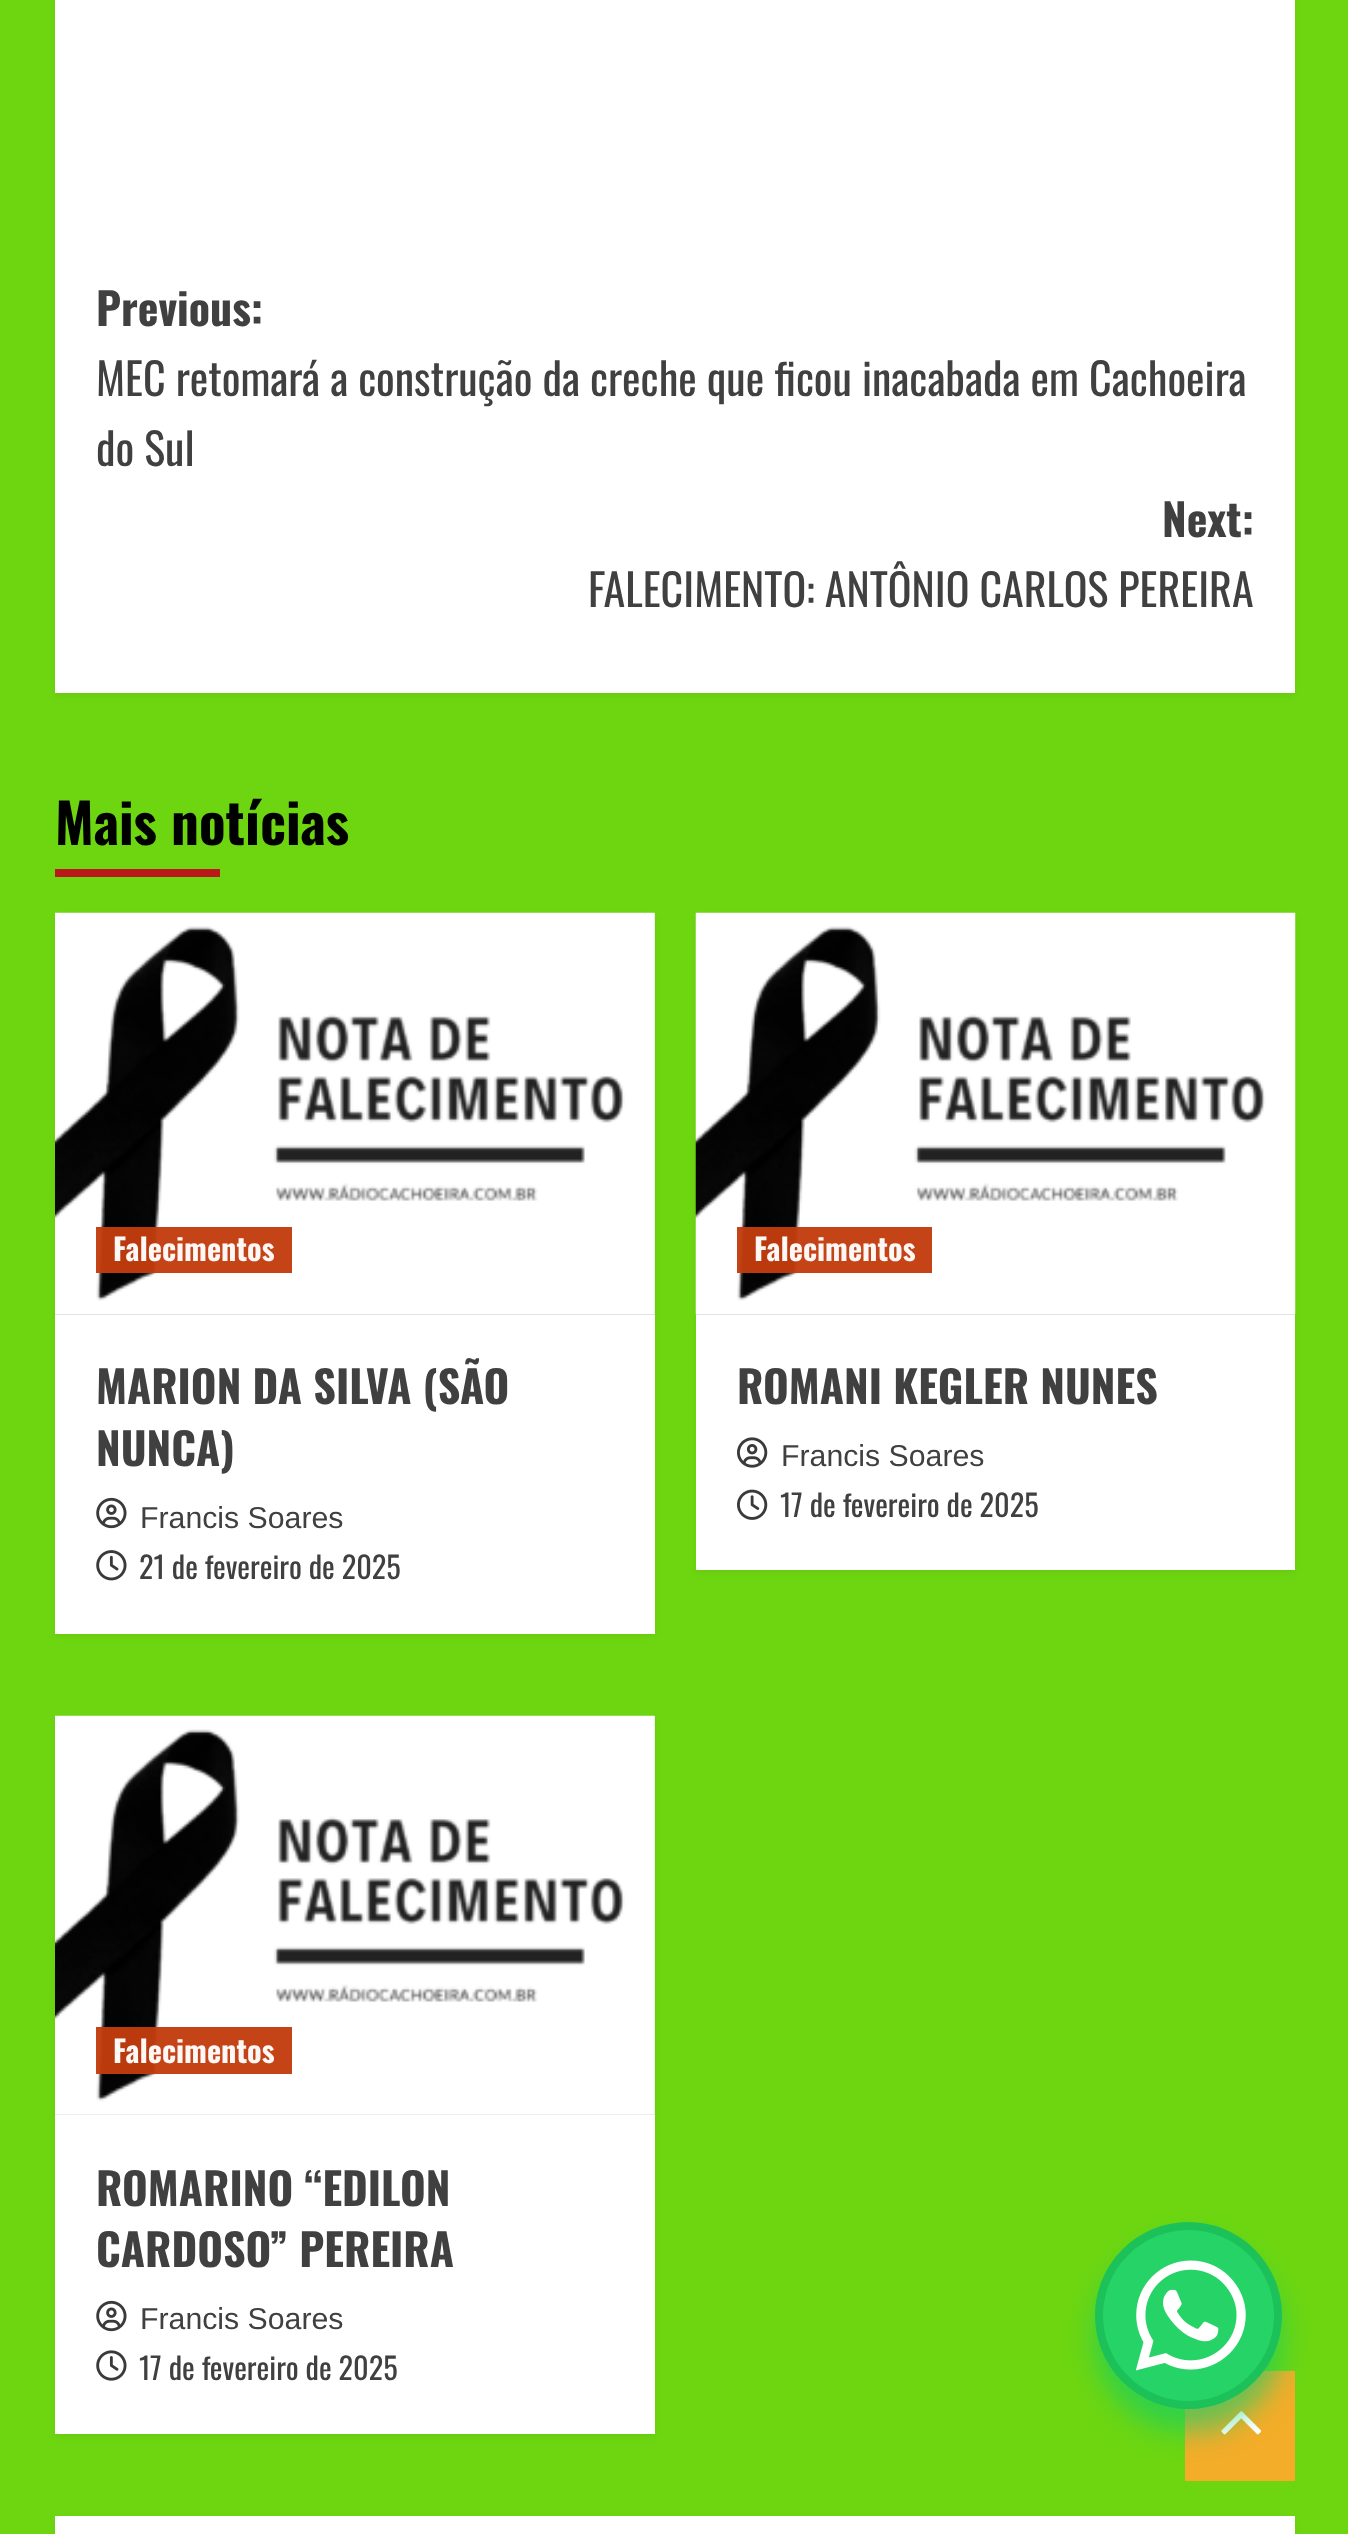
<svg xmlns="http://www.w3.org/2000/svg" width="1348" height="2534">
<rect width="100%" height="100%" fill="#6dd611"/>
<rect x="55" y="-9" width="1240" height="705" fill="#0000000d" filter="blur(3px)"/>
<rect x="55" width="1240" height="693" fill="#fff"/>
<text x="96" y="326" style="font-family:Oswald;font-size:44px;font-weight:bold;fill:#404040">Previous:</text>
<text x="96" y="396" style="font-family:Oswald;font-size:44px;fill:#404040">MEC retomará a construção da creche que ficou inacabada em Cachoeira</text>
<text x="96" y="466" style="font-family:Oswald;font-size:44px;fill:#404040">do Sul</text>
<text x="1162" y="537" style="font-family:Oswald;font-size:44px;font-weight:bold;fill:#404040">Next:</text>
<text x="588" y="607" style="font-family:Oswald;font-size:44px;fill:#404040">FALECIMENTO: ANTÔNIO CARLOS PEREIRA</text>
<text x="55" y="845" style="font-family:Oswald;font-size:55px;font-weight:bold;fill:#000">Mais notícias</text>
<rect x="55" y="869" width="165" height="8" fill="#bb1919"/>
<rect x="55" y="916" width="600" height="720" fill="#0000000d" filter="blur(3px)"/>
<rect x="55" y="1315" width="600" height="319" fill="#fff"/>
<rect x="55" y="913" width="600" height="402" fill="#d8d8d8"/>
<image x="55" y="912" width="600" height="403" href="media/1.png"/>
<rect x="96" y="1227" width="196" height="46" fill="#c23b0ef5"/>
<text x="113" y="1261" style="font-family:Oswald;font-size:30.25px;font-weight:bold;fill:#fdf7f6">Falecimentos</text>
<text x="96" y="1404" style="font-family:Oswald;font-size:44px;font-weight:bold;fill:#404040">MARION DA SILVA (SÃO</text>
<text x="96" y="1466" style="font-family:Oswald;font-size:44px;font-weight:bold;fill:#404040">NUNCA)</text>
<image x="96" y="1497" width="31" height="32" href="media/2.png"/>
<text x="140" y="1528" style="font-family:Liberation Sans;font-size:30.25px;fill:#404040">Francis Soares</text>
<image x="96" y="1550" width="31" height="31" href="media/3.png"/>
<text x="139" y="1579" style="font-family:Oswald;font-size:30.25px;fill:#404040">21 de fevereiro de 2025</text>
<rect x="696" y="916" width="599" height="657" fill="#0000000d" filter="blur(3px)"/>
<rect x="696" y="1315" width="599" height="255" fill="#fff"/>
<rect x="696" y="1314" width="599" height="1" fill="#d8d8d8"/>
<image x="695" y="912" width="601" height="403" href="media/4.png"/>
<rect x="737" y="1227" width="195" height="46" fill="#c23b0ef5"/>
<text x="754" y="1261" style="font-family:Oswald;font-size:30.25px;font-weight:bold;fill:#fdf7f6">Falecimentos</text>
<text x="737" y="1404" style="font-family:Oswald;font-size:44px;font-weight:bold;fill:#404040">ROMANI KEGLER NUNES</text>
<image x="737" y="1437" width="31" height="31" href="media/5.png"/>
<text x="781" y="1466" style="font-family:Liberation Sans;font-size:30.25px;fill:#404040">Francis Soares</text>
<image x="737" y="1489" width="31" height="31" href="media/6.png"/>
<text x="780" y="1517" style="font-family:Oswald;font-size:30.25px;fill:#404040">17 de fevereiro de 2025</text>
<rect x="55" y="1719" width="600" height="718" fill="#0000000d" filter="blur(3px)"/>
<rect x="55" y="2115" width="600" height="319" fill="#fff"/>
<rect x="55" y="1716" width="600" height="399" fill="#d8d8d8"/>
<image x="55" y="1715" width="600" height="400" href="media/7.png"/>
<rect x="96" y="2027" width="196" height="47" fill="#c23b0ef5"/>
<text x="113" y="2063" style="font-family:Oswald;font-size:30.25px;font-weight:bold;fill:#fdf7f6">Falecimentos</text>
<text x="96" y="2206" style="font-family:Oswald;font-size:44px;font-weight:bold;fill:#404040">ROMARINO “EDILON</text>
<text x="96" y="2267" style="font-family:Oswald;font-size:44px;font-weight:bold;fill:#404040">CARDOSO” PEREIRA</text>
<image x="96" y="2300" width="31" height="32" href="media/2.png"/>
<text x="140" y="2329" style="font-family:Liberation Sans;font-size:30.25px;fill:#404040">Francis Soares</text>
<image x="96" y="2350" width="31" height="31" href="media/8.png"/>
<text x="139" y="2380" style="font-family:Oswald;font-size:30.25px;fill:#404040">17 de fevereiro de 2025</text>
<rect x="55" y="2519" width="1240" height="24" fill="#0000000d" filter="blur(3px)"/>
<rect x="55" y="2516" width="1240" height="18" fill="#fff"/>
<rect x="1185" y="2371" width="110" height="110" fill="#f3ad29"/>
<image x="1221" y="2411" width="41" height="24" href="media/10.png"/>
<rect x="1095" y="2244" width="187" height="187" rx="93.5" fill="#07ce7099" filter="blur(14px)"/>
<circle cx="1188.5" cy="2315.5" r="89.5" fill="#25d366" stroke="#1cc15a" stroke-width="8"/>
<image x="1136" y="2260" width="110" height="111" href="media/9.png"/>
</svg>
